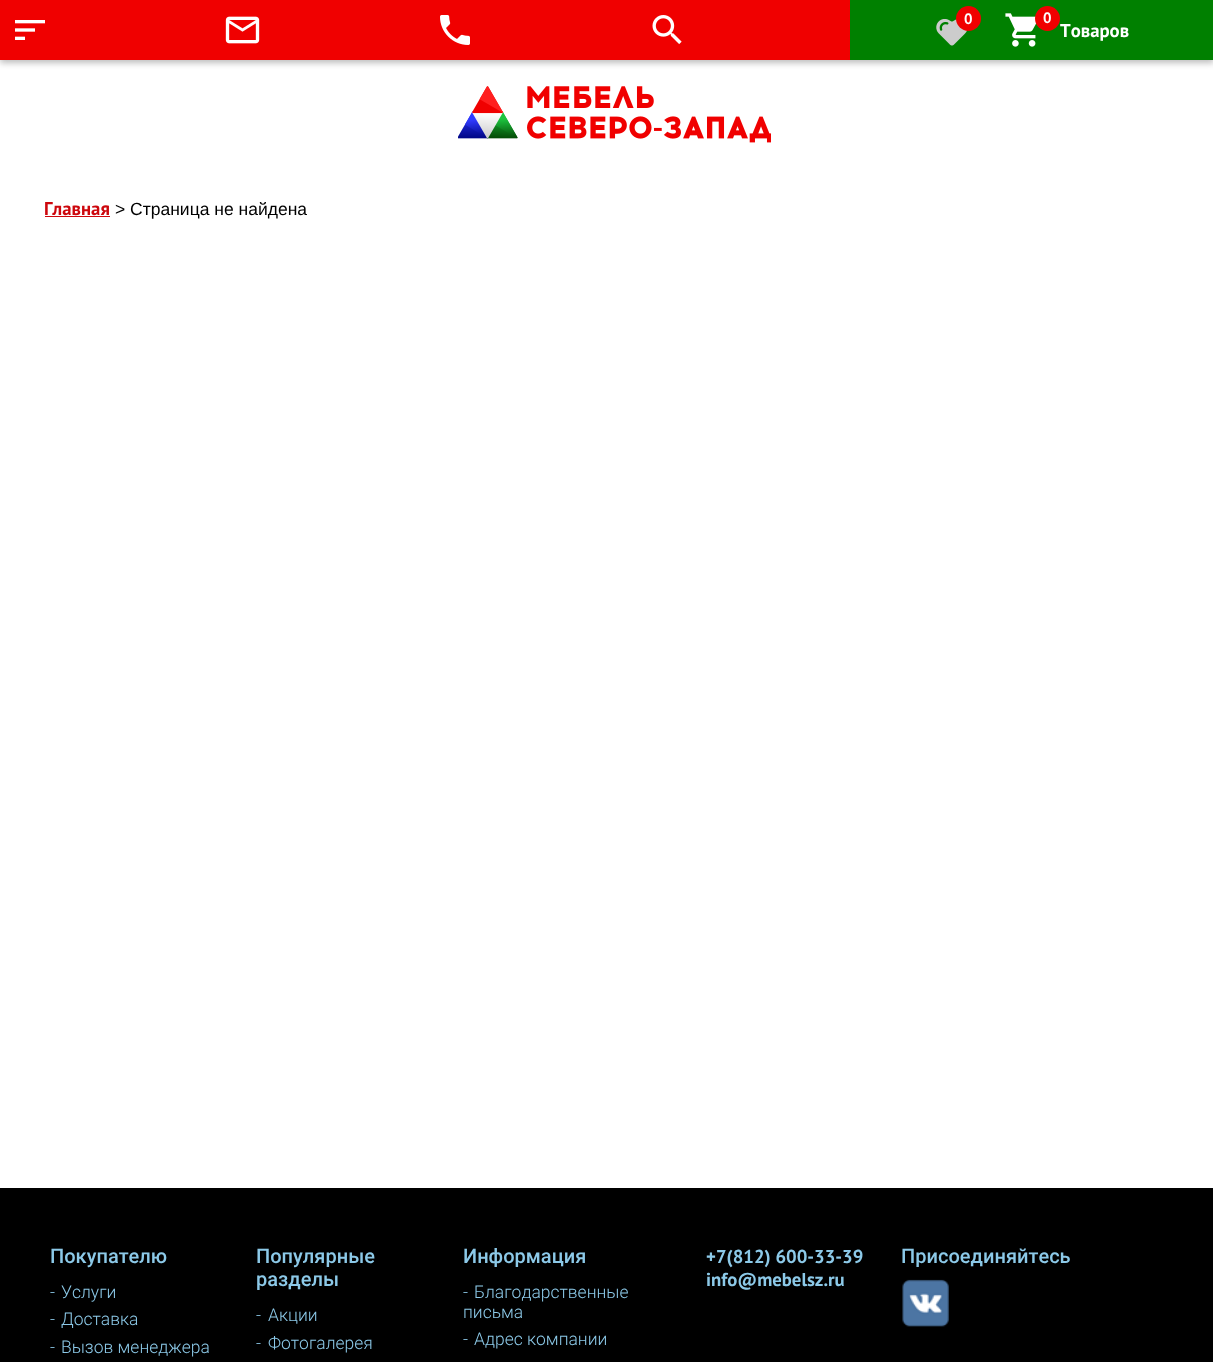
<svg xmlns="http://www.w3.org/2000/svg" width="1213" height="1362">
<rect width="100%" height="100%" fill="#fff"/>
<rect y="3" width="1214" height="60" fill="#00000042" filter="blur(3px)"/>
<rect width="850" height="60" fill="#f00000"/>
<image x="15" y="20" width="30" height="20" href="media/1.png"/>
<image x="225" y="16" width="35" height="28" href="media/2.png"/>
<image x="440" y="15" width="30" height="30" href="media/3.png"/>
<image x="652" y="15" width="30" height="30" href="media/4.png"/>
<rect x="850" width="363" height="60" fill="#008000"/>
<image x="936" y="19" width="32" height="27" href="media/5.png"/>
<circle cx="968.5" cy="18.5" r="12.5" fill="#f00000"/>
<text x="964" y="24" style="font-family:PT Sans;font-size:15px;font-weight:bold;fill:#fff">0</text>
<image x="1005" y="13" width="32" height="34" href="media/6.png"/>
<circle cx="1047.5" cy="18.5" r="12.5" fill="#f00000"/>
<text x="1043" y="23" style="font-family:PT Sans;font-size:15px;font-weight:bold;fill:#fff">0</text>
<text x="1060" y="37" style="font-family:PT Sans;font-size:18.75px;font-weight:bold;fill:#fff">Товаров</text>
<image x="458" y="86" width="313" height="57" href="media/7.png"/>
<text x="44" y="215" style="font-family:PT Sans;font-size:18.75px;font-weight:bold;fill:#cd070d">Главная</text>
<rect x="45" y="216" width="65" height="1" fill="#cd070d"/>
<text x="115" y="215" style="font-family:Liberation Sans;font-size:17.5px;fill:#000">&gt; Страница не найдена</text>
<rect y="1188" width="1213" height="174" fill="#000"/>
<text x="50" y="1263" style="font-family:Roboto;font-size:20px;font-weight:500;fill:#8cc9e8">Покупателю</text>
<text x="50" y="1298" style="font-family:Roboto;font-size:17.5px;font-weight:300;fill:#8cc9e8">-</text>
<text x="61" y="1298" style="font-family:Roboto;font-size:17.5px;font-weight:300;fill:#8cc9e8">Услуги</text>
<text x="50" y="1325" style="font-family:Roboto;font-size:17.5px;font-weight:300;fill:#8cc9e8">-</text>
<text x="61" y="1325" style="font-family:Roboto;font-size:17.5px;font-weight:300;fill:#8cc9e8">Доставка</text>
<text x="50" y="1353" style="font-family:Roboto;font-size:17.5px;font-weight:300;fill:#8cc9e8">-</text>
<text x="61" y="1353" style="font-family:Roboto;font-size:17.5px;font-weight:300;fill:#8cc9e8">Вызов менеджера</text>
<text x="256" y="1263" style="font-family:Roboto;font-size:20px;font-weight:500;fill:#8cc9e8">Популярные</text>
<text x="256" y="1286" style="font-family:Roboto;font-size:20px;font-weight:500;fill:#8cc9e8">разделы</text>
<text x="256" y="1321" style="font-family:Roboto;font-size:17.5px;font-weight:300;fill:#8cc9e8">-</text>
<text x="268" y="1321" style="font-family:Roboto;font-size:17.5px;font-weight:300;fill:#8cc9e8">Акции</text>
<text x="256" y="1349" style="font-family:Roboto;font-size:17.5px;font-weight:300;fill:#8cc9e8">-</text>
<text x="268" y="1349" style="font-family:Roboto;font-size:17.5px;font-weight:300;fill:#8cc9e8">Фотогалерея</text>
<text x="463" y="1263" style="font-family:Roboto;font-size:20px;font-weight:500;fill:#8cc9e8">Информация</text>
<text x="463" y="1298" style="font-family:Roboto;font-size:17.5px;font-weight:300;fill:#8cc9e8">-</text>
<text x="474" y="1298" style="font-family:Roboto;font-size:17.5px;font-weight:300;fill:#8cc9e8">Благодарственные</text>
<text x="463" y="1318" style="font-family:Roboto;font-size:17.5px;font-weight:300;fill:#8cc9e8">письма</text>
<text x="463" y="1345" style="font-family:Roboto;font-size:17.5px;font-weight:300;fill:#8cc9e8">-</text>
<text x="474" y="1345" style="font-family:Roboto;font-size:17.5px;font-weight:300;fill:#8cc9e8">Адрес компании</text>
<text x="706" y="1263" style="font-family:PT Sans;font-size:18.75px;font-weight:bold;fill:#8cc9e8">+7(812) 600-33-39</text>
<text x="706" y="1286" style="font-family:PT Sans;font-size:18.75px;font-weight:bold;fill:#8cc9e8">info@mebelsz.ru</text>
<text x="901" y="1263" style="font-family:Roboto;font-size:20px;font-weight:500;fill:#8cc9e8">Присоединяйтесь</text>
<image x="902" y="1279" width="47" height="48" href="media/8.png"/>
</svg>
